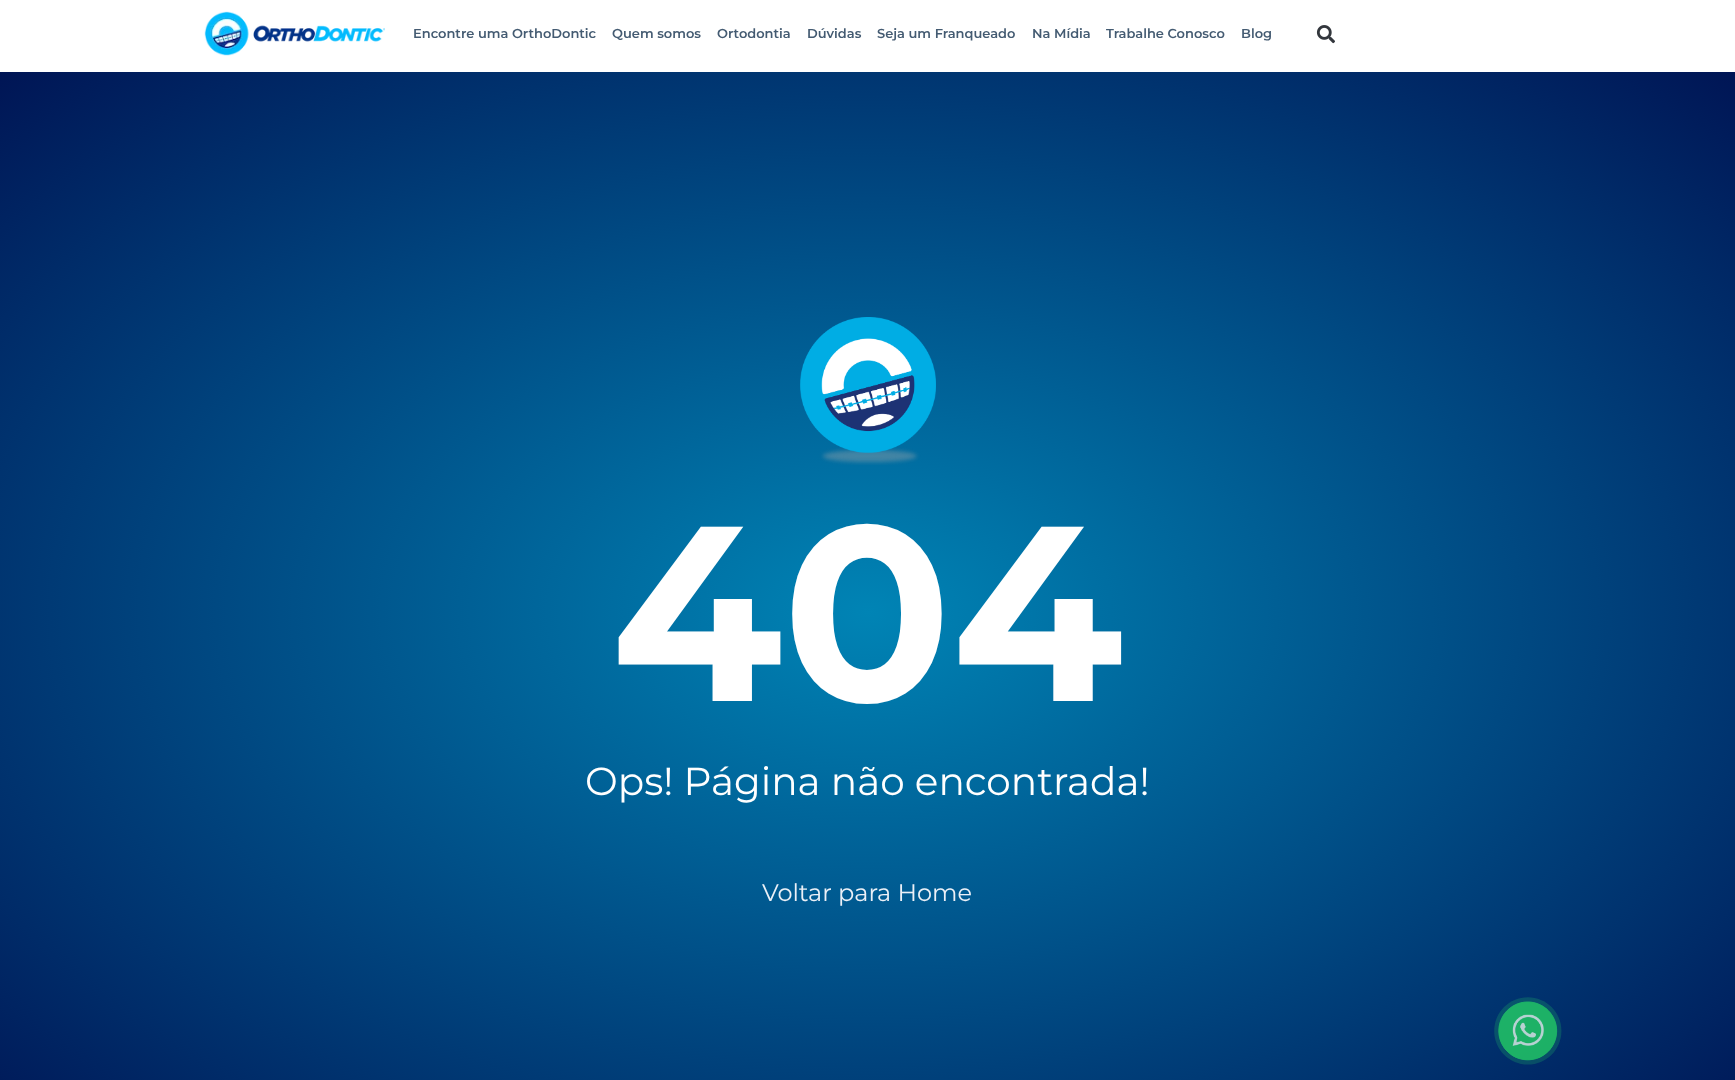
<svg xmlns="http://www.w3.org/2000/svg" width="1735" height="1080">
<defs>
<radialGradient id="g1" gradientUnits="userSpaceOnUse" cx="0" cy="0" r="1" gradientTransform="matrix(1227 0 0 764 868 612)"><stop offset="0" stop-color="#0084b5"/><stop offset="1" stop-color="#001555"/></radialGradient>
</defs>
<rect width="100%" height="100%" fill="#fff"/>
<image x="204" y="11" width="181" height="45" href="media/1.png"/>
<text x="413" y="38" style="font-family:Montserrat;font-size:13px;font-weight:600;fill:#445b72">Encontre uma OrthoDontic</text>
<text x="612" y="38" style="font-family:Montserrat;font-size:13px;font-weight:600;fill:#445b72">Quem somos</text>
<text x="717" y="38" style="font-family:Montserrat;font-size:13px;font-weight:600;fill:#445b72">Ortodontia</text>
<text x="807" y="38" style="font-family:Montserrat;font-size:13px;font-weight:600;fill:#445b72">Dúvidas</text>
<text x="877" y="38" style="font-family:Montserrat;font-size:13px;font-weight:600;fill:#445b72">Seja um Franqueado</text>
<text x="1032" y="38" style="font-family:Montserrat;font-size:13px;font-weight:600;fill:#445b72">Na Mídia</text>
<text x="1106" y="38" style="font-family:Montserrat;font-size:13px;font-weight:600;fill:#445b72">Trabalhe Conosco</text>
<text x="1241" y="38" style="font-family:Montserrat;font-size:13px;font-weight:600;fill:#445b72">Blog</text>
<image x="1316" y="25" width="19" height="19" href="media/2.png"/>
<rect y="72" width="1735" height="1008" fill="url(#g1)"/>
<image x="1494" y="997" width="68" height="68" href="media/3.png"/>
<image x="800" y="317" width="136" height="148" href="media/4.png"/>
<text x="611" y="701" style="font-family:Montserrat;font-size:249px;font-weight:bold;fill:#fff">404</text>
<text x="585" y="795" style="font-family:Montserrat;font-size:39px;fill:#fff">Ops! Página não encontrada!</text>
<text x="762" y="901" style="font-family:Montserrat;font-size:24px;fill:#ebf0f7">Voltar para Home</text>
</svg>
